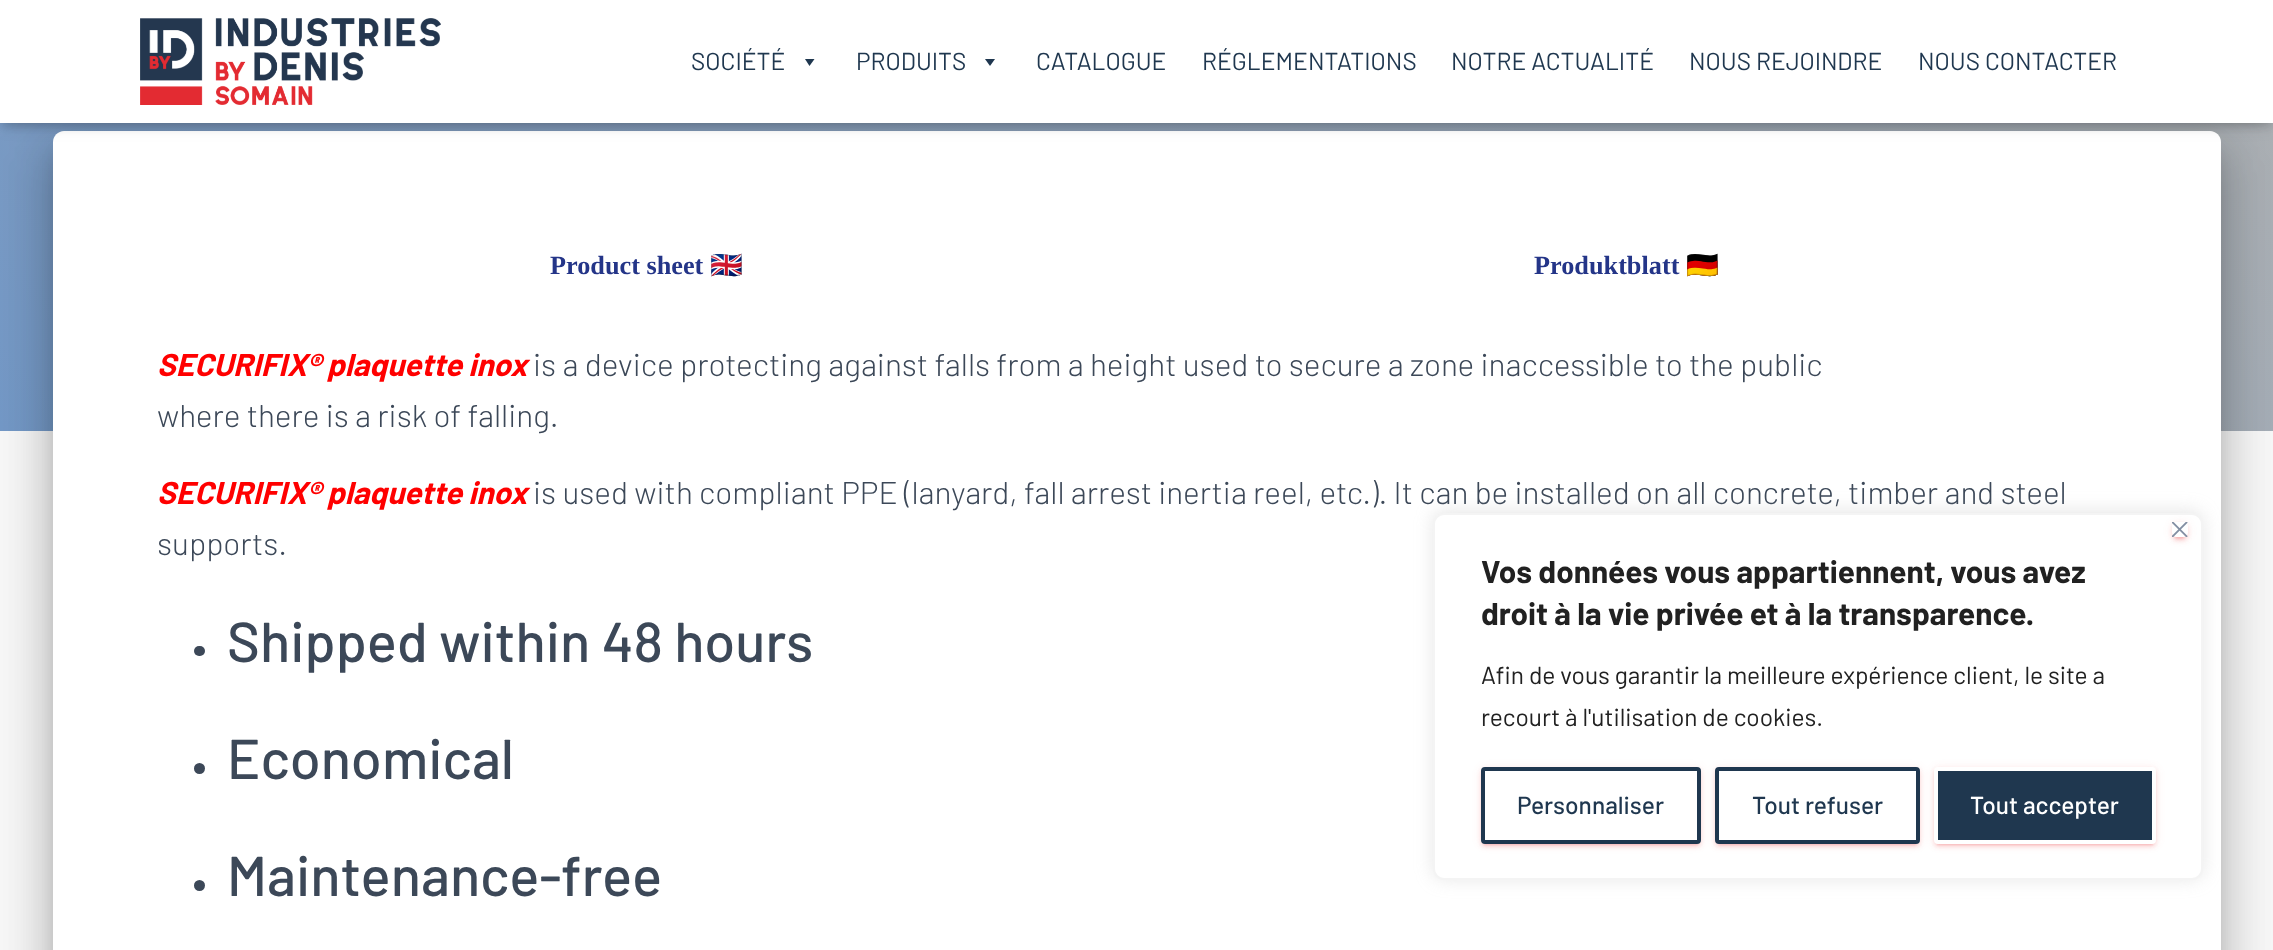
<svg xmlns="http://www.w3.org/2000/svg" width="2273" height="950">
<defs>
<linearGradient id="g1" gradientUnits="userSpaceOnUse" x1="381" y1="812" x2="1893" y2="-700"><stop offset="0" stop-color="#7398c6"/><stop offset="1" stop-color="#b5b4b1"/></linearGradient>
<clipPath id="clip1"><path d="M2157 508h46v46h-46zm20 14h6c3 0 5 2 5 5v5c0 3-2 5-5 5h-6c-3 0-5-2-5-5v-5c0-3 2-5 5-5z" clip-rule="evenodd"/></clipPath>
<clipPath id="clip2"><path d="M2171 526h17v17h-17zm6-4h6c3 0 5 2 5 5v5c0 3-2 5-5 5h-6c-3 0-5-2-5-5v-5c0-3 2-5 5-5z" clip-rule="evenodd"/></clipPath>
<clipPath id="clip3"><path d="M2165 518h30v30h-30zm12 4h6c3 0 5 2 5 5v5c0 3-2 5-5 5h-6c-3 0-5-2-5-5v-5c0-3 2-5 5-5z" clip-rule="evenodd"/></clipPath>
<clipPath id="clip4"><path d="M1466 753h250v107h-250zm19 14h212c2 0 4 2 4 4v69c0 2-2 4-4 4h-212c-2 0-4-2-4-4v-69c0-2 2-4 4-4z" clip-rule="evenodd"/></clipPath>
<clipPath id="clip5"><path d="M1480 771h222v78h-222zm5-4h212c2 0 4 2 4 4v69c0 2-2 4-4 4h-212c-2 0-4-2-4-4v-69c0-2 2-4 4-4z" clip-rule="evenodd"/></clipPath>
<clipPath id="clip6"><path d="M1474 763h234v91h-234zm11 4h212c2 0 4 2 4 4v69c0 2-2 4-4 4h-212c-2 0-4-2-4-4v-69c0-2 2-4 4-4z" clip-rule="evenodd"/></clipPath>
<clipPath id="clip7"><path d="M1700 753h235v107h-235zm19 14h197c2 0 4 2 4 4v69c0 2-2 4-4 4h-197c-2 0-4-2-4-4v-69c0-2 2-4 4-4z" clip-rule="evenodd"/></clipPath>
<clipPath id="clip8"><path d="M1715 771h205v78h-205zm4-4h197c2 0 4 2 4 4v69c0 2-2 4-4 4h-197c-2 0-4-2-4-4v-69c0-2 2-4 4-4z" clip-rule="evenodd"/></clipPath>
<clipPath id="clip9"><path d="M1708 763h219v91h-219zm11 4h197c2 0 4 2 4 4v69c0 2-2 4-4 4h-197c-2 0-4-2-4-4v-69c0-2 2-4 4-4z" clip-rule="evenodd"/></clipPath>
</defs>
<rect width="100%" height="100%" fill="#f7f7f7"/>
<rect y="123" width="2273" height="308" fill="url(#g1)"/>
<rect x="61" y="154" width="2151" height="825" rx="2" fill="#00000033" filter="blur(9px)"/>
<rect x="44" y="133" width="2186" height="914" rx="19" fill="#0000001f" filter="blur(26px)"/>
<rect x="49" y="156" width="2175" height="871" rx="14" fill="#00000024" filter="blur(21px)"/>
<path d="M64 131h2146c6 0 11 5 11 11v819h-2168v-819c0-6 5-11 11-11z" fill="#fff"/>
<rect x="4" y="11" width="2266" height="115" fill="#0000001a" filter="blur(4.5px)"/>
<rect y="2" width="2273" height="122" fill="#0000001f" filter="blur(9px)"/>
<rect x="11" y="12" width="2252" height="102" fill="#0000006b" filter="blur(9px)"/>
<rect width="2273" height="123" fill="#fff"/>
<image x="140" y="18" width="301" height="87" href="media/1.png"/>
<text x="691" y="70" style="font-family:Barlow;font-size:24.5px;fill:#1f374f">SOCIÉTÉ</text>
<path d="M814.5 59l-5 7l-4.5-7z" fill="#1f374f"/>
<text x="856" y="70" style="font-family:Barlow;font-size:24.5px;fill:#1f374f">PRODUITS</text>
<path d="M995 59l-5 7l-5-7z" fill="#1f374f"/>
<text x="1036" y="70" style="font-family:Barlow;font-size:24.5px;fill:#1f374f">CATALOGUE</text>
<text x="1202" y="70" style="font-family:Barlow;font-size:24.5px;fill:#1f374f">RÉGLEMENTATIONS</text>
<text x="1451" y="70" style="font-family:Barlow;font-size:24.5px;fill:#1f374f">NOTRE ACTUALITÉ</text>
<text x="1689" y="70" style="font-family:Barlow;font-size:24.5px;fill:#1f374f">NOUS REJOINDRE</text>
<text x="1918" y="70" style="font-family:Barlow;font-size:24.5px;fill:#1f374f">NOUS CONTACTER</text>
<text x="550" y="274" style="font-family:Liberation Serif;font-size:26.25px;font-weight:bold;fill:#243588">Product sheet</text>
<text x="710" y="274" style="font-family:Noto Color Emoji;font-size:26.25px;font-weight:bold;fill:#243588">🇬🇧</text>
<text x="1534" y="274" style="font-family:Liberation Serif;font-size:26.25px;font-weight:bold;fill:#243588">Produktblatt</text>
<text x="1686" y="274" style="font-family:Noto Color Emoji;font-size:26.25px;font-weight:bold;fill:#243588">🇩🇪</text>
<text x="157" y="376" style="font-family:Barlow;font-size:31.5px;font-weight:bold;font-style:italic;fill:#f00">SECURIFIX® plaquette inox</text>
<text x="533" y="376" style="font-family:Barlow;font-size:31.5px;font-weight:300;fill:#3c4858">is a device protecting against falls from a height used to secure a zone inaccessible to the public</text>
<text x="157" y="427" style="font-family:Barlow;font-size:31.5px;font-weight:300;fill:#3c4858">where there is a risk of falling.</text>
<text x="157" y="504" style="font-family:Barlow;font-size:31.5px;font-weight:bold;font-style:italic;fill:#f00">SECURIFIX® plaquette inox</text>
<text x="533" y="504" style="font-family:Barlow;font-size:31.5px;font-weight:300;fill:#3c4858">is used with compliant PPE (lanyard, fall arrest inertia reel, etc.). It can be installed on all concrete, timber and steel</text>
<text x="157" y="555" style="font-family:Barlow;font-size:31.5px;font-weight:300;fill:#3c4858">supports.</text>
<rect x="194" y="646" width="11" height="10" rx="5" fill="#3c4858"/>
<text x="227" y="662" style="font-family:Barlow;font-size:56px;font-weight:500;fill:#3c4858">Shipped within 48 hours</text>
<circle cx="199.5" cy="768.5" r="5.5" fill="#3c4858"/>
<text x="227" y="779" style="font-family:Barlow;font-size:56px;font-weight:500;fill:#3c4858">Economical</text>
<circle cx="199.5" cy="885.5" r="5.5" fill="#3c4858"/>
<text x="227" y="896" style="font-family:Barlow;font-size:56px;font-weight:500;fill:#3c4858">Maintenance-free</text>
<rect x="1433" y="511" width="770" height="368" rx="11" fill="#acabab4d" filter="blur(9px)"/>
<rect x="1434" y="514" width="768" height="365" rx="10" fill="#fff" stroke="#f4f4f4" stroke-width="2"/>
<g clip-path="url(#clip1)">
<rect x="2172" y="523" width="16" height="16" rx="5" fill="#eb383b1f" filter="blur(4.5px)"/>
</g>
<g clip-path="url(#clip2)">
<rect x="2175" y="530" width="9" height="9" rx="2" fill="#eb383b33" filter="blur(1px)"/>
</g>
<g clip-path="url(#clip3)">
<rect x="2172" y="525" width="16" height="16" rx="5" fill="#eb383b24" filter="blur(2px)"/>
</g>
<image x="2172" y="522" width="16" height="15" href="media/2.png"/>
<text x="1481" y="583" style="font-family:Barlow;font-size:31.5px;font-weight:bold;fill:#212121">Vos données vous appartiennent, vous avez</text>
<text x="1481" y="625" style="font-family:Barlow;font-size:31.5px;font-weight:bold;fill:#212121">droit à la vie privée et à la transparence.</text>
<text x="1481" y="684" style="font-family:Barlow;font-size:24.5px;fill:#212121">Afin de vous garantir la meilleure expérience client, le site a</text>
<text x="1481" y="726" style="font-family:Barlow;font-size:24.5px;fill:#212121">recourt à l'utilisation de cookies.</text>
<g clip-path="url(#clip4)">
<rect x="1481" y="768" width="220" height="77" rx="4" fill="#eb383b1f" filter="blur(4.5px)"/>
</g>
<g clip-path="url(#clip5)">
<rect x="1484" y="775" width="214" height="70" fill="#eb383b33" filter="blur(1px)"/>
</g>
<g clip-path="url(#clip6)">
<rect x="1481" y="770" width="220" height="77" rx="4" fill="#eb383b24" filter="blur(2px)"/>
</g>
<rect x="1483" y="769" width="216" height="73" rx="2" fill="none" stroke="#1f374f" stroke-width="4"/>
<text x="1517" y="814" style="font-family:Barlow;font-size:24.5px;font-weight:500;fill:#1f374f">Personnaliser</text>
<g clip-path="url(#clip7)">
<rect x="1715" y="768" width="205" height="77" rx="4" fill="#eb383b1f" filter="blur(4.5px)"/>
</g>
<g clip-path="url(#clip8)">
<rect x="1719" y="775" width="197" height="70" fill="#eb383b33" filter="blur(1px)"/>
</g>
<g clip-path="url(#clip9)">
<rect x="1715" y="770" width="205" height="77" rx="4" fill="#eb383b24" filter="blur(2px)"/>
</g>
<rect x="1717" y="769" width="201" height="73" rx="2" fill="none" stroke="#1f374f" stroke-width="4"/>
<text x="1752" y="814" style="font-family:Barlow;font-size:24.5px;font-weight:500;fill:#1f374f">Tout refuser</text>
<rect x="1934" y="768" width="222" height="77" rx="4" fill="#eb383b1f" filter="blur(4.5px)"/>
<rect x="1937" y="775" width="216" height="70" fill="#eb383b33" filter="blur(1px)"/>
<rect x="1934" y="770" width="222" height="77" rx="4" fill="#eb383b24" filter="blur(2px)"/>
<rect x="1936" y="769" width="218" height="73" rx="2" fill="#1f374f" stroke="#fff" stroke-width="4"/>
<text x="1970" y="814" style="font-family:Barlow;font-size:24.5px;font-weight:500;fill:#fff">Tout accepter</text>
</svg>
